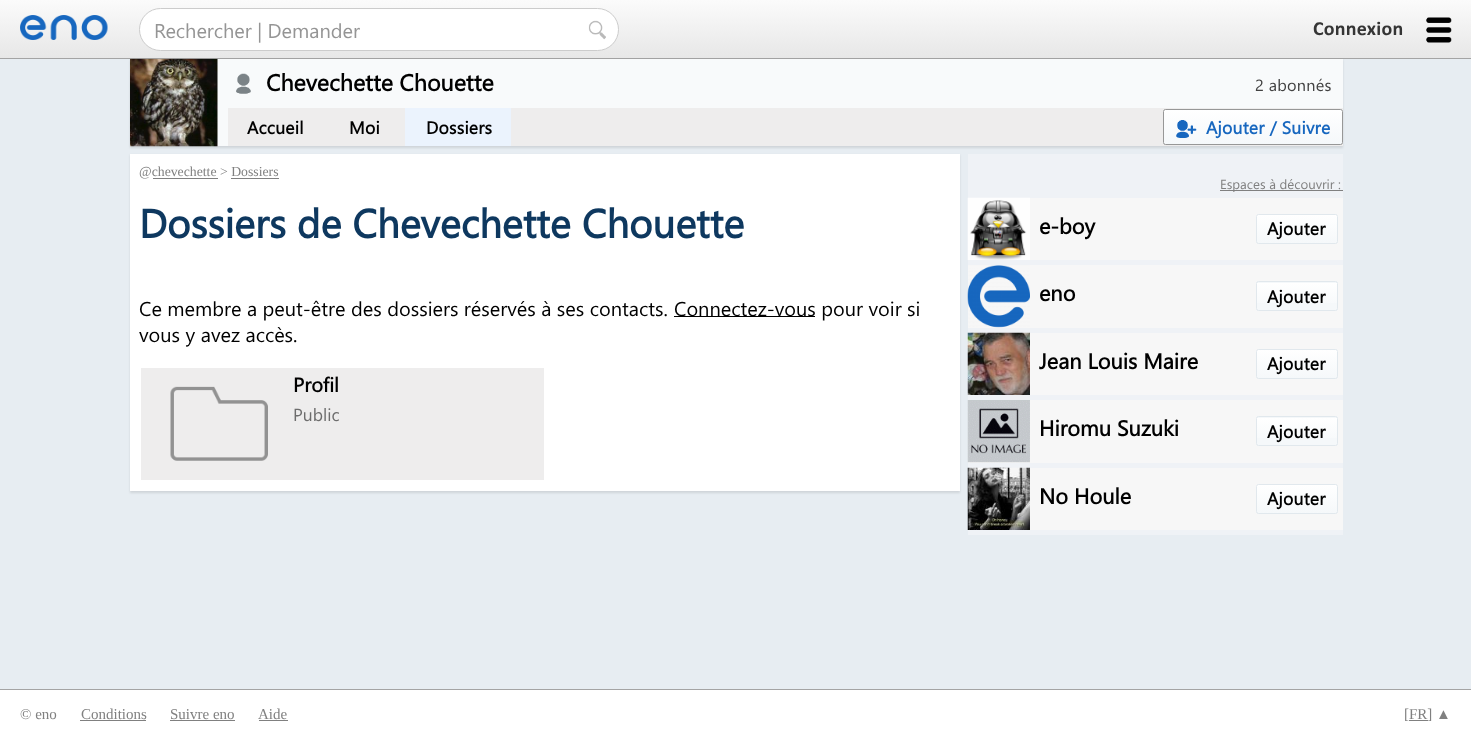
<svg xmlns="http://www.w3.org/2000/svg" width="1471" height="734">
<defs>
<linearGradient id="g1" gradientUnits="userSpaceOnUse" x1="736" y1="0" x2="736" y2="58"><stop offset="0" stop-color="#fbfbfb"/><stop offset="1" stop-color="#e7e7e7"/></linearGradient>
<clipPath id="clip1"><path d="M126 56h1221v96h-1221zm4 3h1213v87h-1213z" clip-rule="evenodd"/></clipPath>
<clipPath id="clip2"><rect x="1163" y="109" width="180" height="36" rx="2.5"/></clipPath>
<linearGradient id="g2" gradientUnits="userSpaceOnUse" x1="1253" y1="110" x2="1253" y2="144"><stop offset="0" stop-color="#fff"/><stop offset="1" stop-color="#f5f8fa"/></linearGradient>
<clipPath id="clip3"><rect x="1256" y="214" width="82" height="30" rx="2.5"/></clipPath>
<linearGradient id="g3" gradientUnits="userSpaceOnUse" x1="1297" y1="215" x2="1297" y2="243"><stop offset="0" stop-color="#fff"/><stop offset="1" stop-color="#f5f8fa"/></linearGradient>
<linearGradient id="g4" gradientUnits="userSpaceOnUse" x1="1297" y1="283" x2="1297" y2="310"><stop offset="0" stop-color="#fff"/><stop offset="1" stop-color="#f5f8fa"/></linearGradient>
<clipPath id="clip4"><rect x="1256" y="349" width="82" height="30" rx="2.5"/></clipPath>
<linearGradient id="g5" gradientUnits="userSpaceOnUse" x1="1297" y1="350" x2="1297" y2="378"><stop offset="0" stop-color="#fff"/><stop offset="1" stop-color="#f5f8fa"/></linearGradient>
<linearGradient id="g6" gradientUnits="userSpaceOnUse" x1="1297" y1="418" x2="1297" y2="445"><stop offset="0" stop-color="#fff"/><stop offset="1" stop-color="#f5f8fa"/></linearGradient>
<clipPath id="clip5"><rect x="1256" y="484" width="82" height="30" rx="2.5"/></clipPath>
<linearGradient id="g7" gradientUnits="userSpaceOnUse" x1="1297" y1="485" x2="1297" y2="513"><stop offset="0" stop-color="#fff"/><stop offset="1" stop-color="#f5f8fa"/></linearGradient>
</defs>
<rect width="100%" height="100%" fill="#fff"/>
<rect width="1471" height="58" fill="url(#g1)"/>
<rect y="58" width="1471" height="1" fill="#a4a4a4"/>
<image x="20" y="15" width="88" height="25" href="media/1.png"/>
<rect x="139.5" y="8.5" width="479" height="42" rx="21" fill="#fff" stroke="#ccc"/>
<text x="154" y="38" style="font-family:Segoe UI;font-size:20px;fill:#959595">Rechercher | Demander</text>
<image x="588" y="20" width="18" height="20" href="media/2.png"/>
<text x="1313" y="35" style="font-family:Calibri;font-size:20px;font-weight:bold;letter-spacing:0.25px;fill:#353535">Connexion</text>
<image x="1426" y="17" width="26" height="26" href="media/3.png"/>
<rect y="59" width="1471" height="630" fill="#e7edf2"/>
<g clip-path="url(#clip1)">
<rect x="130" y="60" width="1213" height="88" fill="#0000001a" filter="blur(1px)"/>
</g>
<rect x="217" y="59" width="1126" height="87" fill="#ffffffb3"/>
<image x="130" y="58" width="88" height="89" href="media/4.png"/>
<image x="236" y="73" width="15" height="21" href="media/5.png"/>
<text x="266" y="91" style="font-family:Segoe UI;font-size:23.25px;font-weight:bold;fill:#000">Chevechette Chouette</text>
<text x="1255" y="91" style="font-family:Segoe UI;font-size:16.25px;letter-spacing:0.25px;fill:#424242">2 abonnés</text>
<rect x="228" y="108" width="1115" height="38" fill="#eeeded"/>
<text x="247" y="134" style="font-family:Segoe UI;font-size:17.5px;font-weight:bold;letter-spacing:0.25px;fill:#000">Accueil</text>
<text x="349" y="134" style="font-family:Segoe UI;font-size:17.5px;font-weight:bold;letter-spacing:0.25px;fill:#000">Moi</text>
<rect x="405" y="108" width="106" height="38" fill="#ebf3fd"/>
<text x="426" y="134" style="font-family:Segoe UI;font-size:17.5px;font-weight:bold;letter-spacing:0.25px;fill:#000">Dossiers</text>
<g clip-path="url(#clip2)">
<rect x="1163" y="110" width="180" height="34" fill="url(#g2)"/>
</g>
<rect x="1163.5" y="109.5" width="179" height="35" rx="2" fill="none" stroke="#979797"/>
<image x="1176" y="120" width="21" height="18" href="media/6.png"/>
<text x="1206" y="134" style="font-family:Segoe UI;font-size:17.5px;font-weight:bold;letter-spacing:0.25px;fill:#1767bf">Ajouter / Suivre</text>
<rect x="130" y="155" width="830" height="338" fill="#0000001a" filter="blur(1px)"/>
<rect x="130" y="154" width="830" height="337" fill="#fff"/>
<text x="139" y="176" style="font-family:Liberation Serif;font-size:13.75px;fill:#808080">@chevechette &gt; Dossiers</text>
<rect x="153" y="178" width="65" height="1" fill="#808080"/>
<rect x="231" y="178" width="48" height="1" fill="#808080"/>
<text x="139" y="238" style="font-family:Segoe UI;font-size:40px;font-weight:bold;fill:#0e385f">Dossiers de Chevechette Chouette</text>
<text x="139" y="316" style="font-family:Segoe UI;font-size:20px;fill:#000">Ce membre a peut-être des dossiers réservés à ses contacts.</text>
<rect x="674" y="316" width="141" height="1" fill="#000"/>
<text x="674" y="316" style="font-family:Segoe UI;font-size:20px;fill:#000">Connectez-vous pour voir si</text>
<text x="139" y="342" style="font-family:Segoe UI;font-size:20px;fill:#000">vous y avez accès.</text>
<rect x="141" y="368" width="403" height="112" fill="#eeeded"/>
<image x="170" y="386" width="98" height="75" href="media/7.png"/>
<text x="293" y="392" style="font-family:Segoe UI;font-size:20px;font-weight:bold;fill:#000">Profil</text>
<text x="293" y="421" style="font-family:Segoe UI;font-size:17.5px;fill:#6d6d6d">Public</text>
<rect x="968" y="154" width="375" height="381" fill="#eff2f6"/>
<rect x="1220" y="190" width="123" height="1" fill="#808080"/>
<text x="1220" y="189" style="font-family:Segoe UI;font-size:13.25px;fill:#808080">Espaces à découvrir :</text>
<rect x="1030" y="198" width="313" height="62" fill="#f7f7f7"/>
<image x="967" y="197" width="63" height="63" href="media/8.png"/>
<text x="1039" y="234" style="font-family:Segoe UI;font-size:21.75px;font-weight:bold;fill:#000">e-boy</text>
<g clip-path="url(#clip3)">
<rect x="1256" y="215" width="82" height="28" fill="url(#g3)"/>
</g>
<rect x="1256.5" y="214.5" width="81" height="29" rx="2" fill="none" stroke="#e1e8ed"/>
<text x="1267" y="235" style="font-family:Segoe UI;font-size:17.5px;font-weight:bold;letter-spacing:0.25px;fill:#000">Ajouter</text>
<rect x="968" y="265" width="375" height="63" fill="#f7f7f7"/>
<image x="967" y="265" width="63" height="63" href="media/9.png"/>
<text x="1039" y="301" style="font-family:Segoe UI;font-size:21.75px;font-weight:bold;fill:#000">eno</text>
<rect x="1256" y="281" width="82" height="30" rx="2.5" fill="#f5f8fa"/>
<rect x="1256" y="283" width="82" height="20" fill="url(#g4)"/>
<rect x="1256.5" y="281.5" width="81" height="29" rx="2" fill="none" stroke="#e1e8ed"/>
<text x="1267" y="303" style="font-family:Segoe UI;font-size:17.5px;font-weight:bold;letter-spacing:0.25px;fill:#000">Ajouter</text>
<rect x="1030" y="333" width="313" height="62" fill="#f7f7f7"/>
<image x="967" y="332" width="63" height="63" href="media/10.png"/>
<text x="1039" y="369" style="font-family:Segoe UI;font-size:21.75px;font-weight:bold;fill:#000">Jean Louis Maire</text>
<g clip-path="url(#clip4)">
<rect x="1256" y="350" width="82" height="28" fill="url(#g5)"/>
</g>
<rect x="1256.5" y="349.5" width="81" height="29" rx="2" fill="none" stroke="#e1e8ed"/>
<text x="1267" y="370" style="font-family:Segoe UI;font-size:17.5px;font-weight:bold;letter-spacing:0.25px;fill:#000">Ajouter</text>
<rect x="968" y="400" width="375" height="63" fill="#f7f7f7"/>
<image x="967" y="400" width="63" height="63" href="media/11.png"/>
<text x="1039" y="436" style="font-family:Segoe UI;font-size:21.75px;font-weight:bold;fill:#000">Hiromu Suzuki</text>
<rect x="1256" y="416" width="82" height="30" rx="2.5" fill="#f5f8fa"/>
<rect x="1256" y="418" width="82" height="20" fill="url(#g6)"/>
<rect x="1256.5" y="416.5" width="81" height="29" rx="2" fill="none" stroke="#e1e8ed"/>
<text x="1267" y="438" style="font-family:Segoe UI;font-size:17.5px;font-weight:bold;letter-spacing:0.25px;fill:#000">Ajouter</text>
<rect x="1030" y="468" width="313" height="62" fill="#f7f7f7"/>
<image x="967" y="467" width="63" height="63" href="media/12.png"/>
<text x="1039" y="504" style="font-family:Segoe UI;font-size:21.75px;font-weight:bold;fill:#000">No Houle</text>
<g clip-path="url(#clip5)">
<rect x="1256" y="485" width="82" height="28" fill="url(#g7)"/>
</g>
<rect x="1256.5" y="484.5" width="81" height="29" rx="2" fill="none" stroke="#e1e8ed"/>
<text x="1267" y="505" style="font-family:Segoe UI;font-size:17.5px;font-weight:bold;letter-spacing:0.25px;fill:#000">Ajouter</text>
<rect y="689" width="1471" height="1" fill="#a4a4a4"/>
<text x="20" y="719" style="font-family:Liberation Serif;font-size:15px;fill:#808080">© eno</text>
<text x="81" y="719" style="font-family:Liberation Serif;font-size:15px;fill:#808080">Conditions</text>
<rect x="80" y="720" width="66" height="1" fill="#808080"/>
<text x="170" y="719" style="font-family:Liberation Serif;font-size:15px;fill:#808080">Suivre eno</text>
<rect x="170" y="720" width="65" height="1" fill="#808080"/>
<text x="258" y="719" style="font-family:Liberation Serif;font-size:15px;fill:#808080">Aide</text>
<rect x="259" y="720" width="29" height="1" fill="#808080"/>
<text x="1404" y="719" style="font-family:Liberation Serif;font-size:15px;fill:#808080">[FR] ▲</text>
<rect x="1409" y="720" width="19" height="1" fill="#808080"/>
</svg>
